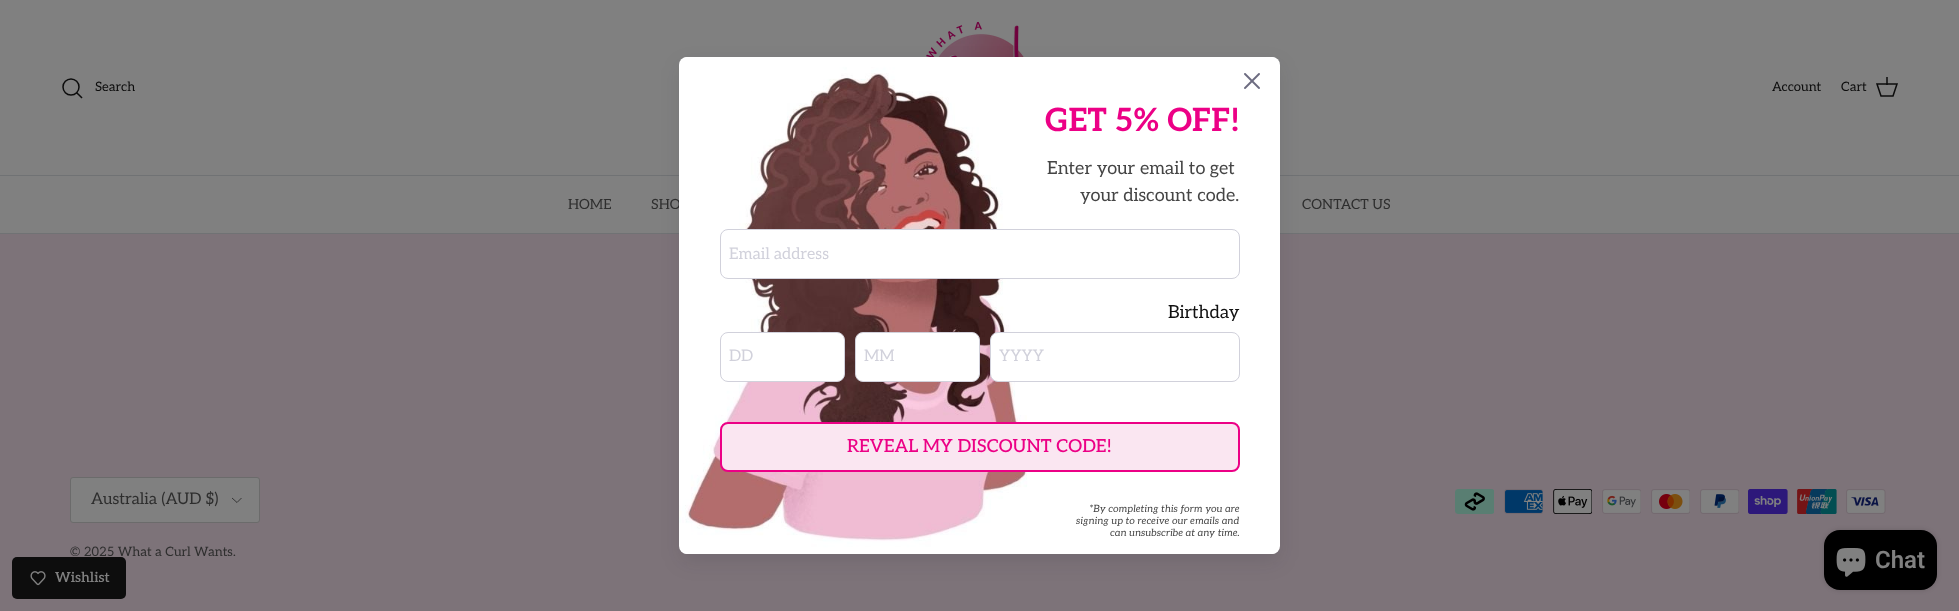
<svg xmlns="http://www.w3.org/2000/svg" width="1959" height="611">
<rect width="100%" height="100%" fill="#7d7379"/>
<rect width="1959" height="175" fill="#808080"/>
<rect y="175" width="1959" height="1" fill="#707274"/>
<image x="926" y="21" width="98" height="36" href="media/1.png"/>
<circle cx="71" cy="87" r="8" fill="none" stroke="#0c0c0c" stroke-width="1.5"/>
<text x="95" y="91" style="font-family:Aleo;font-size:13px;fill:#0c0c0c">Search</text>
<path d="M77 93l4.5 4.5" fill="none" stroke="#0c0c0c" stroke-width="1.5" stroke-linecap="square"/>
<text x="1772" y="91" style="font-family:Aleo;font-size:13px;fill:#0c0c0c">Account</text>
<text x="1841" y="91" style="font-family:Aleo;font-size:13px;fill:#0c0c0c">Cart</text>
<path d="M1877 84h20l-4 12h-12z" fill="none" stroke="#0c0c0c" stroke-width="1.5"/>
<rect x="1886" y="77" width="2" height="8" fill="#0c0c0cbf"/>
<rect y="233" width="1959" height="1" fill="#707274"/>
<rect y="176" width="1959" height="57" fill="#808080"/>
<text x="568" y="209" style="font-family:Aleo;font-size:14px;fill:#2e2e2e">HOME</text>
<text x="651" y="209" style="font-family:Aleo;font-size:14px;fill:#2e2e2e">SHO</text>
<text x="1302" y="209" style="font-family:Aleo;font-size:14px;fill:#2e2e2e">CONTACT US</text>
<rect x="70.5" y="477.5" width="189" height="45" rx="2.5" fill="#808080" stroke="#6b6b6b"/>
<text x="91" y="504" style="font-family:Aleo;font-size:16px;fill:#2e2e2e">Australia (AUD $)</text>
<path d="M241.5 498l-4.5 4.5l-5-4.5" fill="none" stroke="#2e2e2e" stroke-width="0.9"/>
<text x="70" y="556" style="font-family:Aleo;font-size:13px;fill:#2e2e2e">© 2025 What a Curl Wants.</text>
<image x="1455" y="489" width="39" height="25" href="media/2.png"/>
<image x="1504" y="489" width="39" height="25" href="media/3.png"/>
<image x="1553" y="489" width="39" height="25" href="media/4.png"/>
<image x="1602" y="489" width="39" height="25" href="media/5.png"/>
<image x="1651" y="489" width="39" height="25" href="media/6.png"/>
<image x="1700" y="489" width="39" height="25" href="media/7.png"/>
<image x="1748" y="489" width="40" height="25" href="media/8.png"/>
<image x="1797" y="489" width="40" height="25" href="media/9.png"/>
<image x="1846" y="489" width="40" height="25" href="media/10.png"/>
<rect x="680" y="65" width="600" height="497" rx="8" fill="#1211271a" filter="blur(10px)"/>
<rect x="680" y="57" width="600" height="497" rx="8" fill="#fff"/>
<image x="679" y="57" width="599" height="497" href="media/11.png"/>
<image x="1244" y="73" width="16" height="16" href="media/12.png"/>
<text x="1045" y="131" style="font-family:Aleo;font-size:32px;font-weight:bold;fill:#ec0086">GET 5% OFF!</text>
<text x="1047" y="174" style="font-family:Aleo;font-size:18px;fill:#454545">Enter your email to get</text>
<text x="1080" y="201" style="font-family:Aleo;font-size:18px;fill:#454545">your discount code.</text>
<rect x="720.5" y="229.5" width="519" height="49" rx="7.5" fill="#fff" stroke="#d1d1db"/>
<text x="729" y="259" style="font-family:Aleo;font-size:16px;fill:#d1d1db">Email address</text>
<text x="1168" y="318" style="font-family:Aleo;font-size:18px;fill:#121212">Birthday</text>
<rect x="720.5" y="332.5" width="124" height="49" rx="7.5" fill="#fff" stroke="#d1d1db"/>
<text x="729" y="361" style="font-family:Aleo;font-size:16px;fill:#d1d1db">DD</text>
<rect x="855.5" y="332.5" width="124" height="49" rx="7.5" fill="#fff" stroke="#d1d1db"/>
<text x="864" y="361" style="font-family:Aleo;font-size:16px;fill:#d1d1db">MM</text>
<rect x="990.5" y="332.5" width="249" height="49" rx="7.5" fill="#fff" stroke="#d1d1db"/>
<text x="999" y="361" style="font-family:Aleo;font-size:16px;fill:#d1d1db">YYYY</text>
<rect x="721" y="423" width="518" height="48" rx="7" fill="#fae6f1" stroke="#ec0086" stroke-width="2"/>
<text x="847" y="452" style="font-family:Aleo;font-size:18px;font-weight:500;fill:#ec0086">REVEAL MY DISCOUNT CODE!</text>
<text x="1089" y="512" style="font-family:Aleo;font-size:10px;font-style:italic;fill:#454545">*By completing this form you are</text>
<text x="1076" y="524" style="font-family:Aleo;font-size:10px;font-style:italic;fill:#454545">signing up to receive our emails and</text>
<text x="1110" y="536" style="font-family:Aleo;font-size:10px;font-style:italic;fill:#454545">can unsubscribe at any time.</text>
<rect x="1824" y="530" width="113" height="60" rx="16" fill="#00000026" filter="blur(2.5px)"/>
<rect x="1824" y="530" width="113" height="60" rx="16" fill="#000"/>
<image x="1836" y="548" width="30" height="29" href="media/13.png"/>
<text x="1875" y="568" style="font-family:Roboto;font-size:24px;font-weight:600;fill:#808080">Chat</text>
<rect x="12" y="557" width="114" height="42" rx="5" fill="#0d0d0d"/>
<image x="30" y="571" width="16" height="15" href="media/14.png"/>
<text x="55" y="582" style="font-family:Aleo;font-size:14px;font-weight:600;fill:#808080">Wishlist</text>
</svg>
